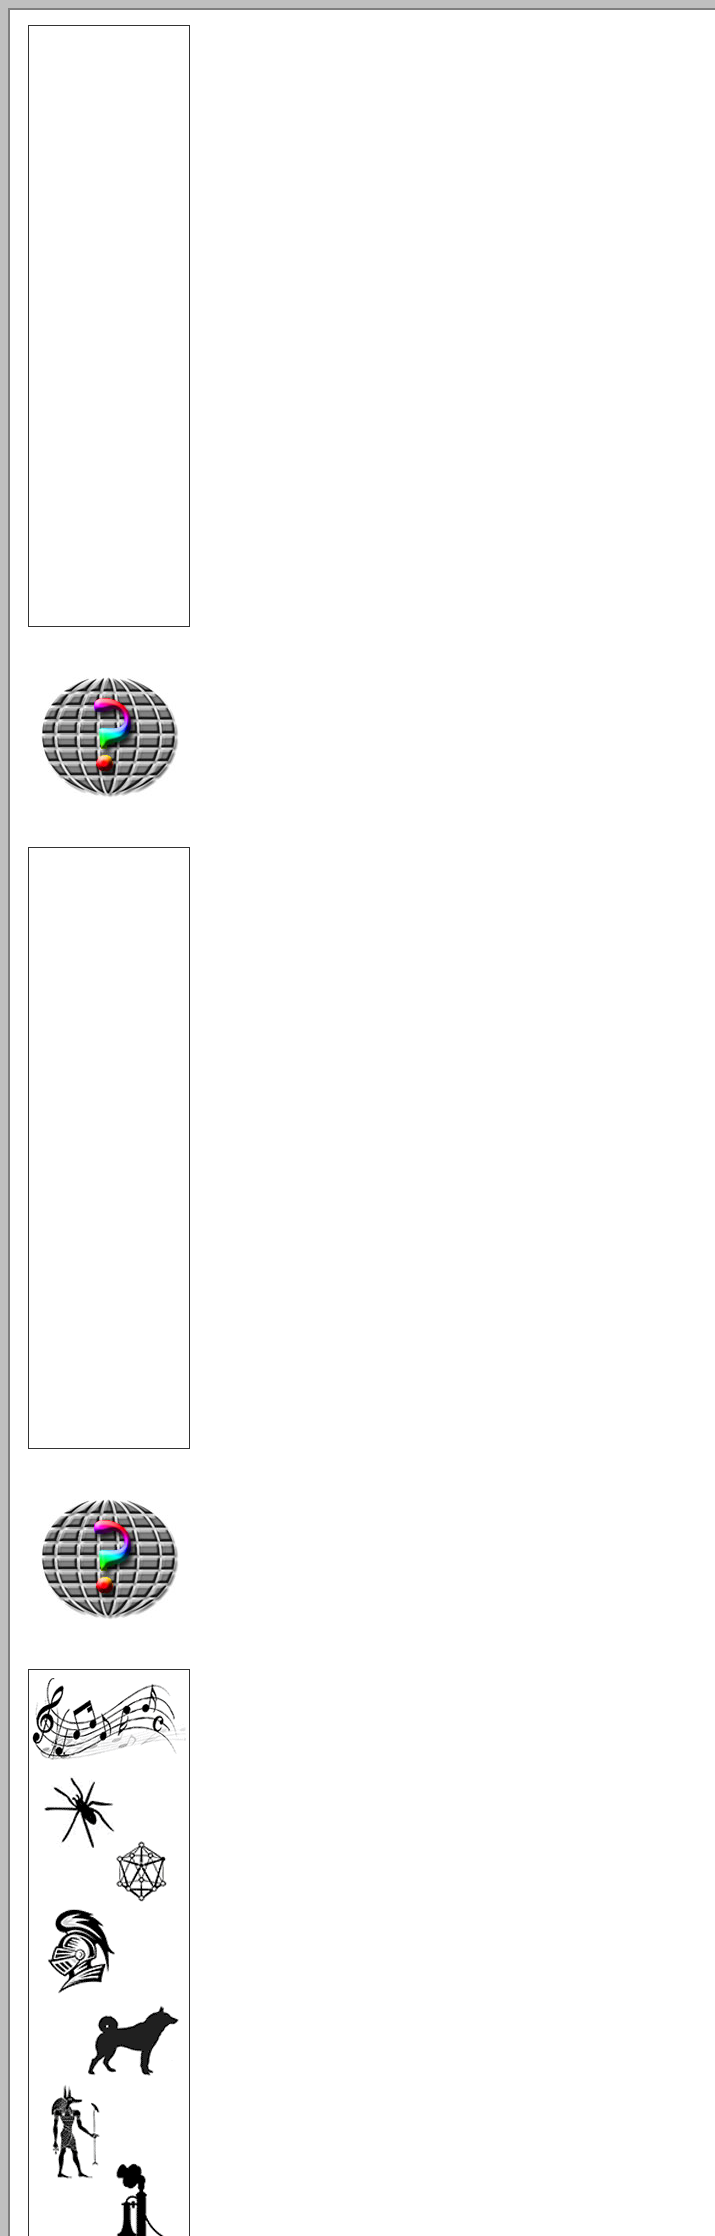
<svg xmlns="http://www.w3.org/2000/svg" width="715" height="2236">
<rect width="100%" height="100%" fill="#c0c0c0"/>
<rect x="10" y="10" width="705" height="2226" fill="#fff"/>
<rect x="8.5" y="8.5" width="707" height="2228" fill="none" stroke="#808080"/>
<rect x="9.5" y="9.5" width="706" height="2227" fill="none" stroke="#808080"/>
<rect x="28" y="25" width="162" height="1" fill="#333"/>
<rect x="189" y="25" width="1" height="602" fill="#333"/>
<rect x="28" y="626" width="162" height="1" fill="#333"/>
<rect x="28" y="25" width="1" height="602" fill="#333"/>
<image x="40" y="677" width="139" height="121" href="media/1.png"/>
<rect x="28" y="847" width="162" height="1" fill="#333"/>
<rect x="189" y="847" width="1" height="602" fill="#333"/>
<rect x="28" y="1448" width="162" height="1" fill="#333"/>
<rect x="28" y="847" width="1" height="602" fill="#333"/>
<image x="40" y="1499" width="139" height="121" href="media/1.png"/>
<rect x="28" y="1669" width="162" height="1" fill="#333"/>
<rect x="189" y="1669" width="1" height="567" fill="#333"/>
<rect x="28" y="1669" width="1" height="567" fill="#333"/>
<image x="32" y="1678" width="154" height="558" href="media/2.png"/>
</svg>
